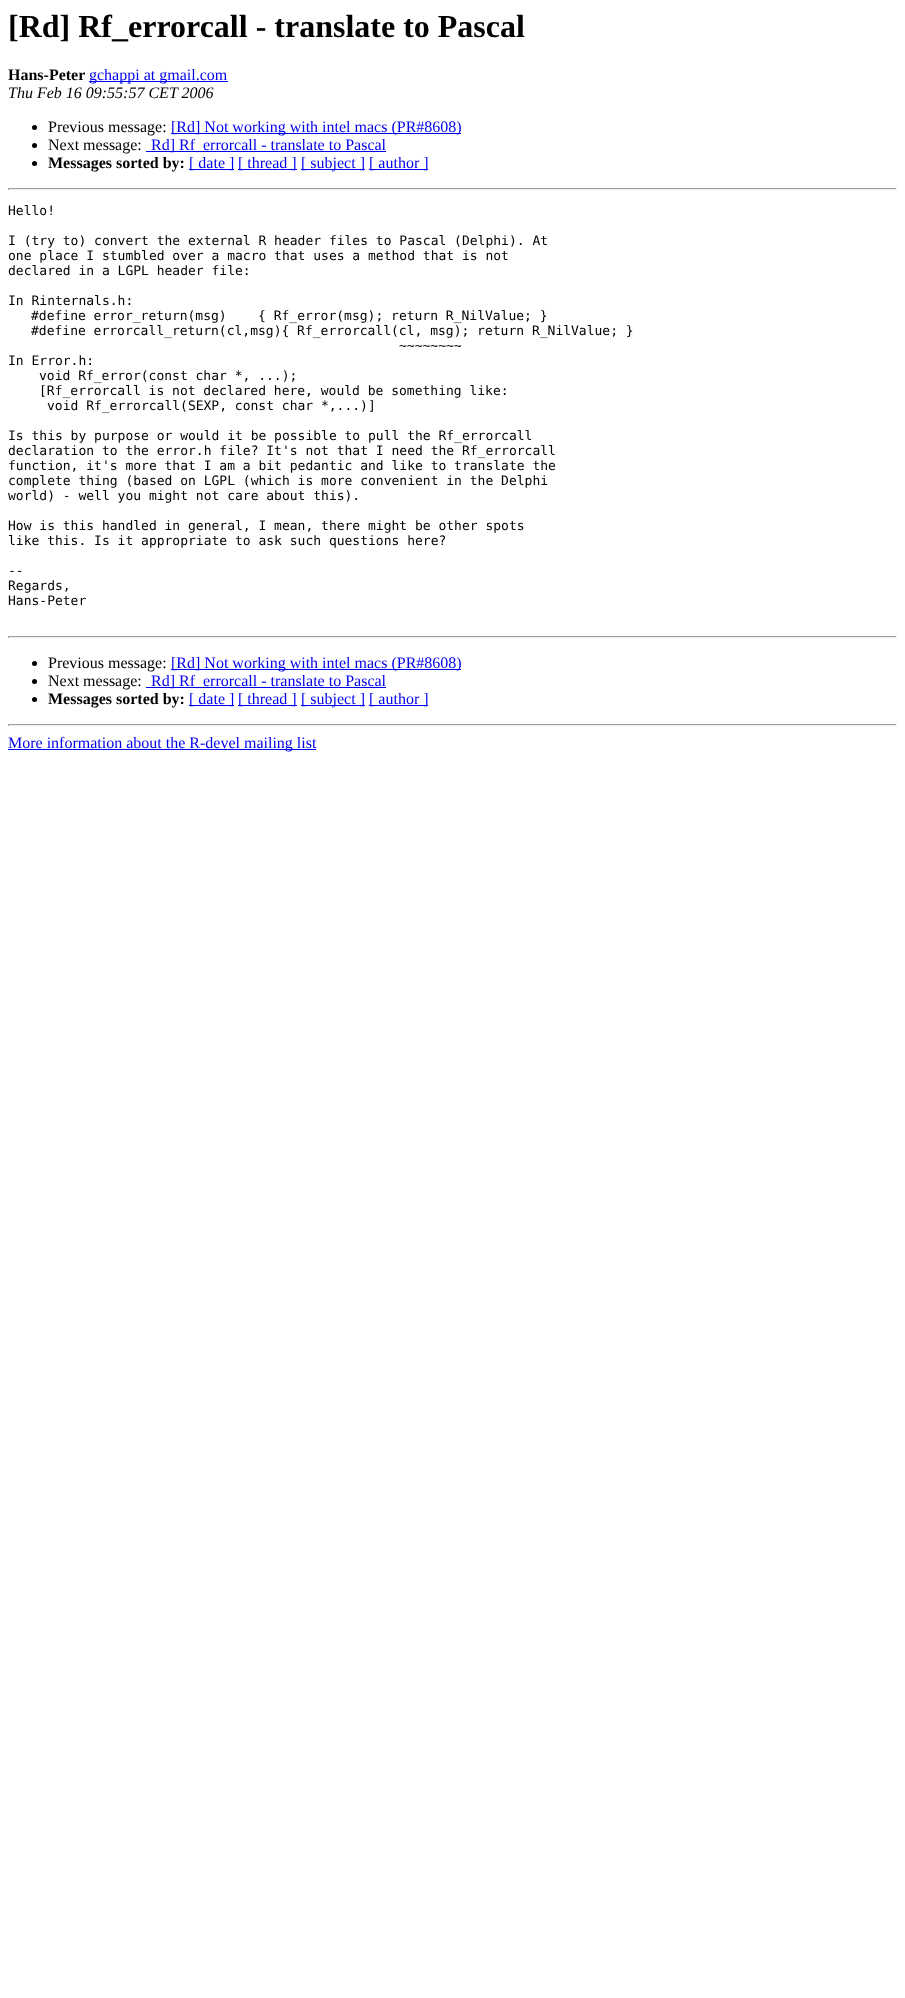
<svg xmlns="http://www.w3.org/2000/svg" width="905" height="1998">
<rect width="100%" height="100%" fill="#fff"/>
<text x="8" y="37" style="font-family:Liberation Serif;font-size:32px;font-weight:bold;fill:#000">[Rd] Rf_errorcall - translate to Pascal</text>
<text x="8" y="80" style="font-family:Liberation Serif;font-size:16px;font-weight:bold;fill:#000">Hans-Peter</text>
<rect x="89" y="81" width="139" height="1" fill="#00e"/>
<text x="89" y="80" style="font-family:Liberation Serif;font-size:16px;fill:#00e">gchappi at gmail.com</text>
<text x="8" y="98" style="font-family:Liberation Serif;font-size:16px;font-style:italic;fill:#000">Thu Feb 16 09:55:57 CET 2006</text>
<circle cx="34.5" cy="127.5" r="2.5" fill="#000"/>
<text x="48" y="132" style="font-family:Liberation Serif;font-size:16px;fill:#000">Previous message:</text>
<rect x="171" y="133" width="290" height="1" fill="#00e"/>
<text x="171" y="132" style="font-family:Liberation Serif;font-size:16px;fill:#00e">[Rd] Not working with intel macs (PR#8608)</text>
<circle cx="34.5" cy="145.5" r="2.5" fill="#000"/>
<text x="48" y="150" style="font-family:Liberation Serif;font-size:16px;fill:#000">Next message:</text>
<rect x="146" y="151" width="240" height="1" fill="#00e"/>
<text x="151" y="150" style="font-family:Liberation Serif;font-size:16px;fill:#00e">Rd] Rf_errorcall - translate to Pascal</text>
<circle cx="34.5" cy="163.5" r="2.5" fill="#000"/>
<text x="48" y="168" style="font-family:Liberation Serif;font-size:16px;font-weight:bold;fill:#000">Messages sorted by:</text>
<rect x="189" y="169" width="45" height="1" fill="#00e"/>
<text x="189" y="168" style="font-family:Liberation Serif;font-size:16px;fill:#00e">[ date ]</text>
<rect x="238" y="169" width="59" height="1" fill="#00e"/>
<text x="238" y="168" style="font-family:Liberation Serif;font-size:16px;fill:#00e">[ thread ]</text>
<rect x="301" y="169" width="64" height="1" fill="#00e"/>
<text x="301" y="168" style="font-family:Liberation Serif;font-size:16px;fill:#00e">[ subject ]</text>
<rect x="369" y="169" width="59" height="1" fill="#00e"/>
<text x="369" y="168" style="font-family:Liberation Serif;font-size:16px;fill:#00e">[ author ]</text>
<rect x="8" y="188" width="889" height="1" fill="#9f9f9f"/>
<rect x="896" y="188" width="1" height="2" fill="#eee"/>
<rect x="8" y="189" width="889" height="1" fill="#eee"/>
<rect x="8" y="188" width="1" height="2" fill="#9f9f9f"/>
<text x="8" y="215" style="font-family:DejaVu Sans Mono;font-size:13px;fill:#000">Hello!</text>
<text x="8" y="245" style="font-family:DejaVu Sans Mono;font-size:13px;fill:#000">I (try to) convert the external R header files to Pascal (Delphi). At</text>
<text x="8" y="260" style="font-family:DejaVu Sans Mono;font-size:13px;fill:#000">one place I stumbled over a macro that uses a method that is not</text>
<text x="8" y="275" style="font-family:DejaVu Sans Mono;font-size:13px;fill:#000">declared in a LGPL header file:</text>
<text x="8" y="305" style="font-family:DejaVu Sans Mono;font-size:13px;fill:#000">In Rinternals.h:</text>
<text x="31" y="320" style="font-family:DejaVu Sans Mono;font-size:13px;fill:#000">#define error_return(msg)</text>
<text x="258" y="320" style="font-family:DejaVu Sans Mono;font-size:13px;fill:#000">{ Rf_error(msg); return R_NilValue; }</text>
<text x="31" y="335" style="font-family:DejaVu Sans Mono;font-size:13px;fill:#000">#define errorcall_return(cl,msg){ Rf_errorcall(cl, msg); return R_NilValue; }</text>
<text x="399" y="350" style="font-family:DejaVu Sans Mono;font-size:13px;fill:#000">~~~~~~~~</text>
<text x="8" y="365" style="font-family:DejaVu Sans Mono;font-size:13px;fill:#000">In Error.h:</text>
<text x="39" y="380" style="font-family:DejaVu Sans Mono;font-size:13px;fill:#000">void Rf_error(const char *, ...);</text>
<text x="39" y="395" style="font-family:DejaVu Sans Mono;font-size:13px;fill:#000">[Rf_errorcall is not declared here, would be something like:</text>
<text x="47" y="410" style="font-family:DejaVu Sans Mono;font-size:13px;fill:#000">void Rf_errorcall(SEXP, const char *,...)]</text>
<text x="8" y="440" style="font-family:DejaVu Sans Mono;font-size:13px;fill:#000">Is this by purpose or would it be possible to pull the Rf_errorcall</text>
<text x="8" y="455" style="font-family:DejaVu Sans Mono;font-size:13px;fill:#000">declaration to the error.h file? It's not that I need the Rf_errorcall</text>
<text x="8" y="470" style="font-family:DejaVu Sans Mono;font-size:13px;fill:#000">function, it's more that I am a bit pedantic and like to translate the</text>
<text x="8" y="485" style="font-family:DejaVu Sans Mono;font-size:13px;fill:#000">complete thing (based on LGPL (which is more convenient in the Delphi</text>
<text x="8" y="500" style="font-family:DejaVu Sans Mono;font-size:13px;fill:#000">world) - well you might not care about this).</text>
<text x="8" y="530" style="font-family:DejaVu Sans Mono;font-size:13px;fill:#000">How is this handled in general, I mean, there might be other spots</text>
<text x="8" y="545" style="font-family:DejaVu Sans Mono;font-size:13px;fill:#000">like this. Is it appropriate to ask such questions here?</text>
<text x="8" y="575" style="font-family:DejaVu Sans Mono;font-size:13px;fill:#000">--</text>
<text x="8" y="590" style="font-family:DejaVu Sans Mono;font-size:13px;fill:#000">Regards,</text>
<text x="8" y="605" style="font-family:DejaVu Sans Mono;font-size:13px;fill:#000">Hans-Peter</text>
<rect x="8" y="636" width="889" height="1" fill="#9f9f9f"/>
<rect x="896" y="636" width="1" height="2" fill="#eee"/>
<rect x="8" y="637" width="889" height="1" fill="#eee"/>
<rect x="8" y="636" width="1" height="2" fill="#9f9f9f"/>
<circle cx="34.5" cy="663.5" r="2.5" fill="#000"/>
<text x="48" y="668" style="font-family:Liberation Serif;font-size:16px;fill:#000">Previous message:</text>
<rect x="171" y="669" width="290" height="1" fill="#00e"/>
<text x="171" y="668" style="font-family:Liberation Serif;font-size:16px;fill:#00e">[Rd] Not working with intel macs (PR#8608)</text>
<circle cx="34.5" cy="681.5" r="2.5" fill="#000"/>
<text x="48" y="686" style="font-family:Liberation Serif;font-size:16px;fill:#000">Next message:</text>
<rect x="146" y="687" width="240" height="1" fill="#00e"/>
<text x="151" y="686" style="font-family:Liberation Serif;font-size:16px;fill:#00e">Rd] Rf_errorcall - translate to Pascal</text>
<circle cx="34.5" cy="699.5" r="2.5" fill="#000"/>
<text x="48" y="704" style="font-family:Liberation Serif;font-size:16px;font-weight:bold;fill:#000">Messages sorted by:</text>
<rect x="189" y="705" width="45" height="1" fill="#00e"/>
<text x="189" y="704" style="font-family:Liberation Serif;font-size:16px;fill:#00e">[ date ]</text>
<rect x="238" y="705" width="59" height="1" fill="#00e"/>
<text x="238" y="704" style="font-family:Liberation Serif;font-size:16px;fill:#00e">[ thread ]</text>
<rect x="301" y="705" width="64" height="1" fill="#00e"/>
<text x="301" y="704" style="font-family:Liberation Serif;font-size:16px;fill:#00e">[ subject ]</text>
<rect x="369" y="705" width="59" height="1" fill="#00e"/>
<text x="369" y="704" style="font-family:Liberation Serif;font-size:16px;fill:#00e">[ author ]</text>
<rect x="8" y="724" width="889" height="1" fill="#9f9f9f"/>
<rect x="896" y="724" width="1" height="2" fill="#eee"/>
<rect x="8" y="725" width="889" height="1" fill="#eee"/>
<rect x="8" y="724" width="1" height="2" fill="#9f9f9f"/>
<rect x="8" y="749" width="308" height="1" fill="#00e"/>
<text x="8" y="748" style="font-family:Liberation Serif;font-size:16px;fill:#00e">More information about the R-devel mailing list</text>
</svg>
